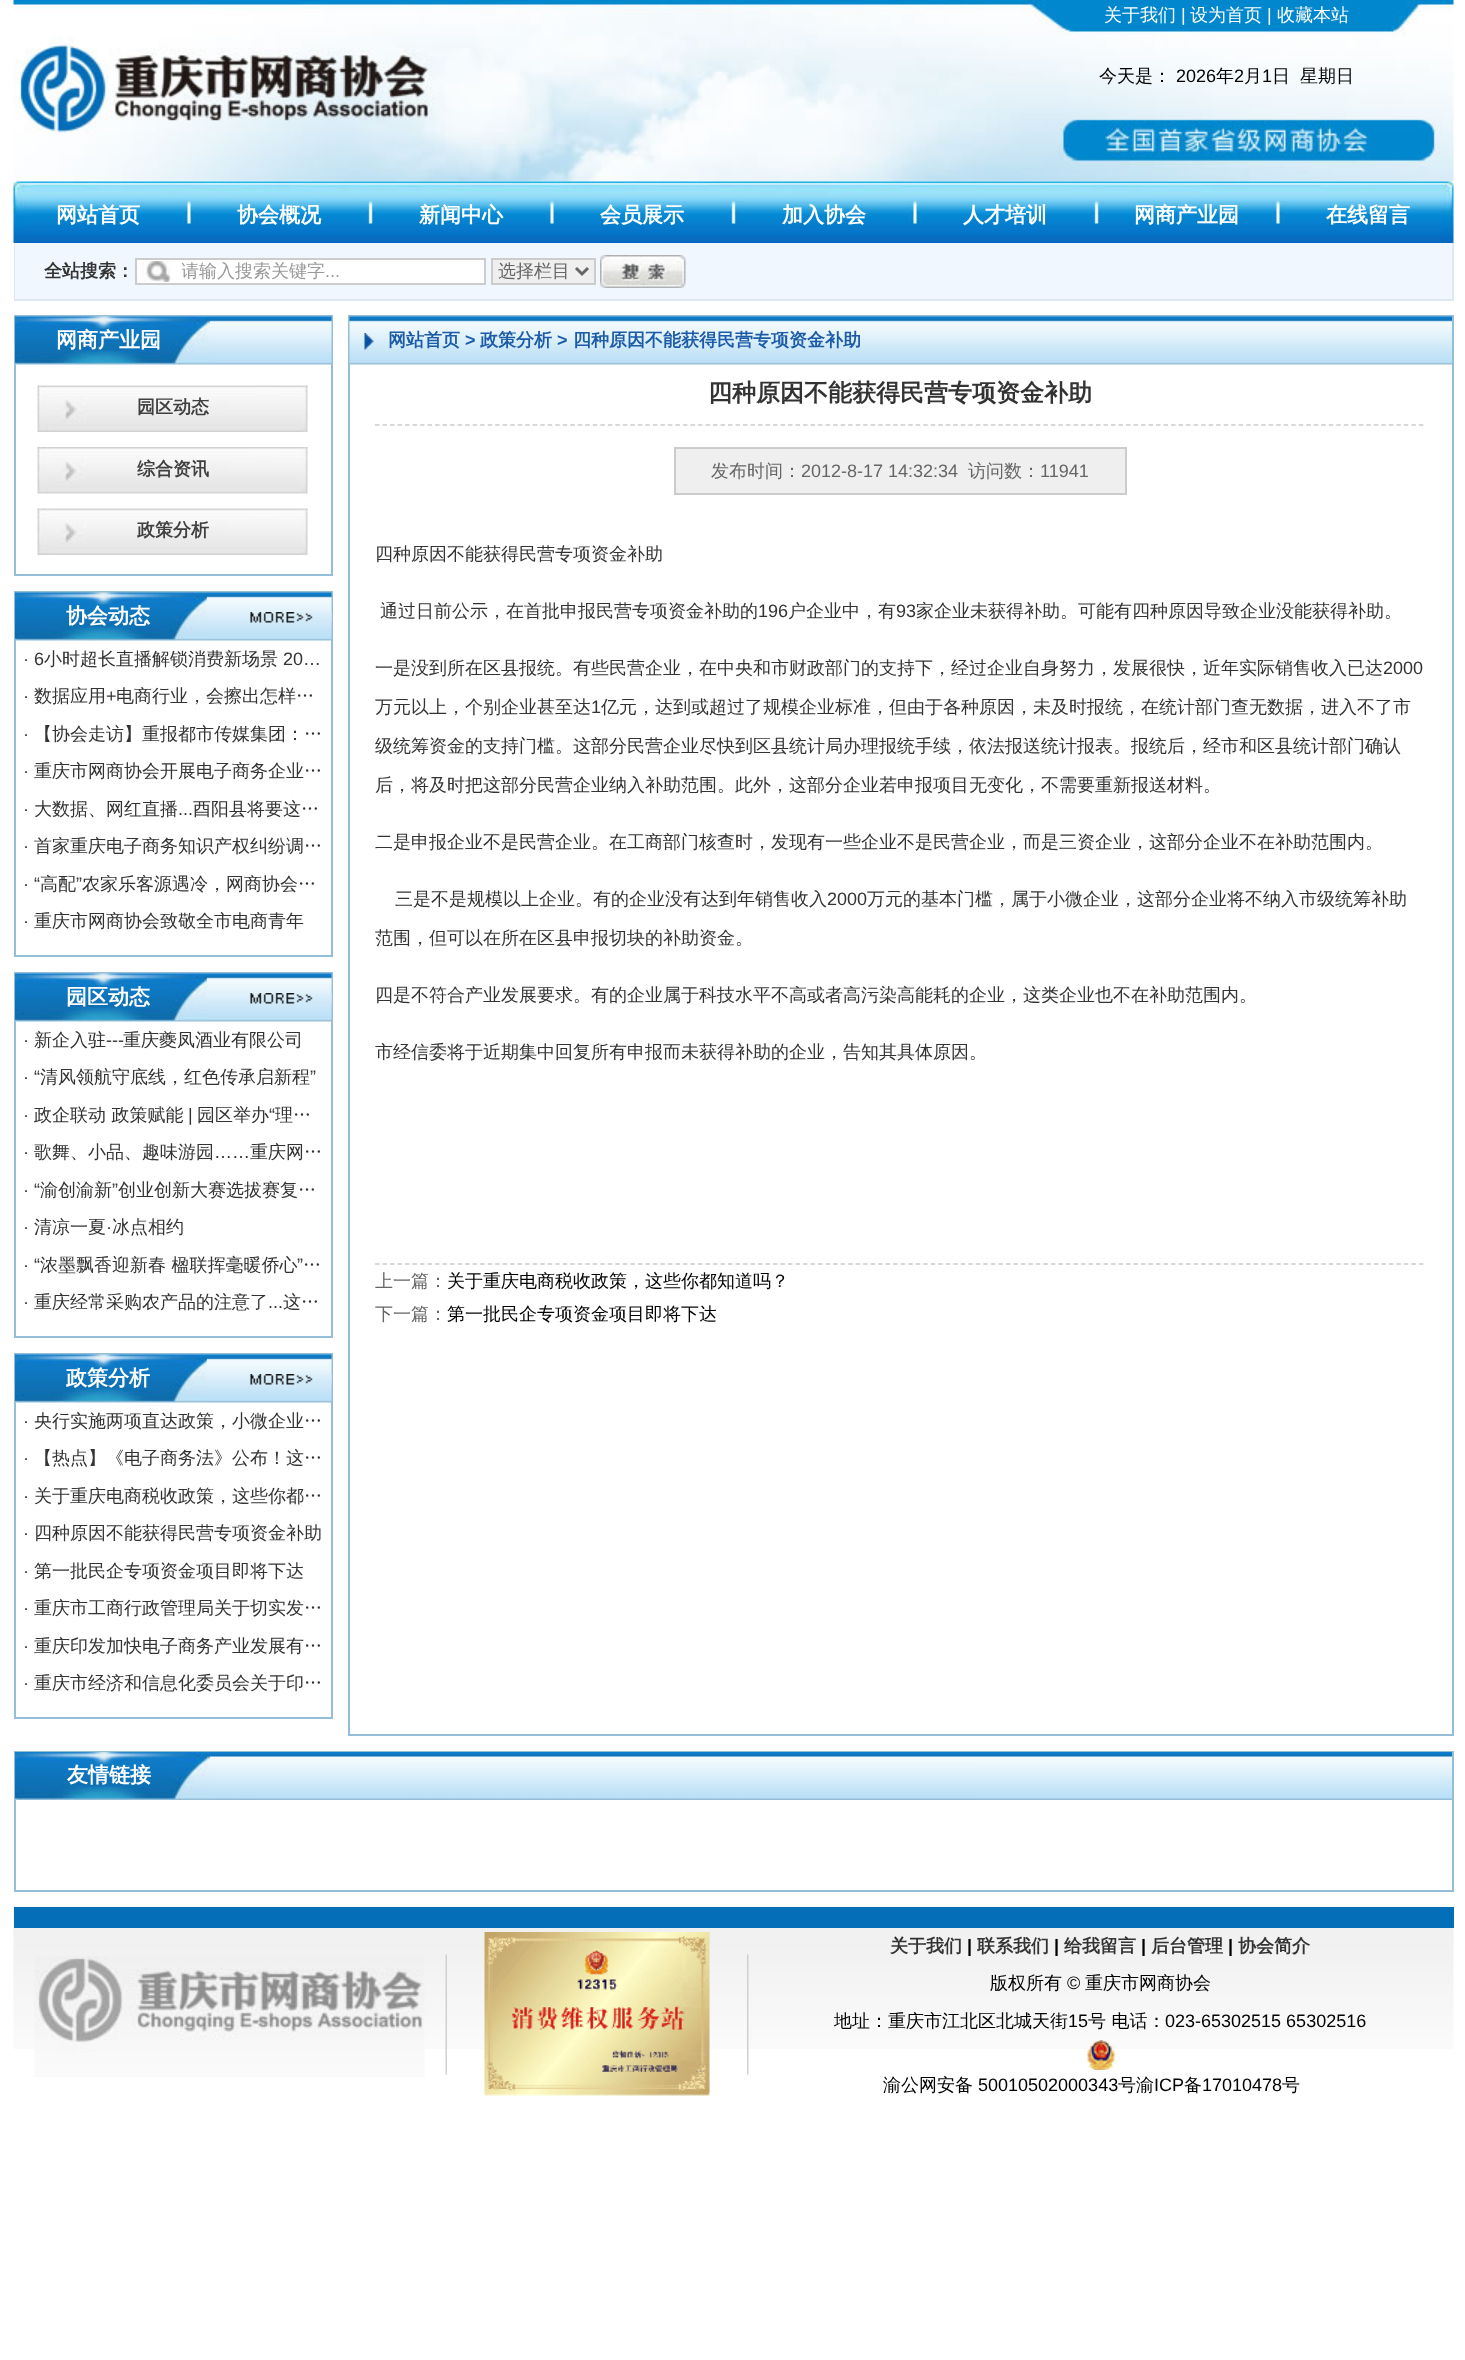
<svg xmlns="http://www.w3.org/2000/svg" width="1465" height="2360">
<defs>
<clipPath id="clip1"><rect x="182" y="261" width="300" height="21"/></clipPath>
</defs>
<rect width="100%" height="100%" fill="#fff"/>
<image x="13" y="0" width="1441" height="182" href="media/1.png"/>
<text x="1104" y="21" style="font-family:WenQuanYi Zen Hei;font-size:18px;font-weight:500;fill:#fff">关于我们</text>
<text x="1181" y="21" style="font-family:Liberation Sans;font-size:18px;fill:#fff">|</text>
<text x="1190" y="21" style="font-family:WenQuanYi Zen Hei;font-size:18px;font-weight:500;fill:#fff">设为首页</text>
<text x="1267" y="21" style="font-family:Liberation Sans;font-size:18px;fill:#fff">|</text>
<text x="1277" y="21" style="font-family:WenQuanYi Zen Hei;font-size:18px;font-weight:500;fill:#fff">收藏本站</text>
<text x="1099" y="82" style="font-family:WenQuanYi Zen Hei;font-size:18px;font-weight:500;fill:#000">今天是：</text>
<text x="1176" y="82" style="font-family:Liberation Sans;font-size:18px;fill:#000">2026</text>
<text x="1216" y="82" style="font-family:WenQuanYi Zen Hei;font-size:18px;font-weight:500;fill:#000">年</text>
<text x="1234" y="82" style="font-family:Liberation Sans;font-size:18px;fill:#000">2</text>
<text x="1244" y="82" style="font-family:WenQuanYi Zen Hei;font-size:18px;font-weight:500;fill:#000">月</text>
<text x="1262" y="82" style="font-family:Liberation Sans;font-size:18px;fill:#000">1</text>
<text x="1272" y="82" style="font-family:WenQuanYi Zen Hei;font-size:18px;font-weight:500;fill:#000">日</text>
<text x="1300" y="82" style="font-family:WenQuanYi Zen Hei;font-size:18px;font-weight:500;fill:#000">星期日</text>
<image x="13" y="181" width="1441" height="62" href="media/2.png"/>
<text x="56" y="222" style="font-family:WenQuanYi Zen Hei;font-size:21px;font-weight:bold;fill:#fff">网站首页</text>
<image x="183" y="201" width="12" height="23" href="media/3.png"/>
<text x="237" y="222" style="font-family:WenQuanYi Zen Hei;font-size:21px;font-weight:bold;fill:#fff">协会概况</text>
<image x="364" y="201" width="13" height="23" href="media/4.png"/>
<text x="419" y="222" style="font-family:WenQuanYi Zen Hei;font-size:21px;font-weight:bold;fill:#fff">新闻中心</text>
<image x="546" y="201" width="12" height="23" href="media/3.png"/>
<text x="600" y="222" style="font-family:WenQuanYi Zen Hei;font-size:21px;font-weight:bold;fill:#fff">会员展示</text>
<image x="727" y="201" width="13" height="23" href="media/4.png"/>
<text x="782" y="222" style="font-family:WenQuanYi Zen Hei;font-size:21px;font-weight:bold;fill:#fff">加入协会</text>
<image x="909" y="201" width="12" height="23" href="media/3.png"/>
<text x="963" y="222" style="font-family:WenQuanYi Zen Hei;font-size:21px;font-weight:bold;fill:#fff">人才培训</text>
<image x="1090" y="201" width="13" height="23" href="media/5.png"/>
<text x="1134" y="222" style="font-family:WenQuanYi Zen Hei;font-size:21px;font-weight:bold;fill:#fff">网商产业园</text>
<image x="1272" y="201" width="12" height="23" href="media/3.png"/>
<text x="1326" y="222" style="font-family:WenQuanYi Zen Hei;font-size:21px;font-weight:bold;fill:#fff">在线留言</text>
<rect x="1452" y="243" width="2" height="57" fill="#dee8f2"/>
<rect x="14" y="299" width="1440" height="2" fill="#dee8f2"/>
<rect x="14" y="243" width="2" height="57" fill="#dee8f2"/>
<rect x="15" y="243" width="1437" height="56" fill="#f0f7ff"/>
<text x="44" y="277" style="font-family:WenQuanYi Zen Hei;font-size:18px;font-weight:bold;fill:#333">全站搜索：</text>
<rect x="137" y="260" width="347" height="23" fill="#fff"/>
<image x="137" y="261" width="35" height="21" href="media/6.png"/>
<rect x="136" y="259" width="349" height="25" fill="none" stroke="#ccc" stroke-width="2"/>
<g clip-path="url(#clip1)">
<text x="181" y="277" style="font-family:WenQuanYi Zen Hei;font-size:18px;font-weight:500;fill:#999">请输入搜索关键字</text>
</g>
<text x="325" y="277" style="font-family:Liberation Sans;font-size:18px;fill:#999">...</text>
<rect x="492" y="259" width="103" height="25" fill="#efefef" stroke="#ccc" stroke-width="2"/>
<path d="M576 268l6 6l6-6" fill="none" stroke="#666" stroke-width="3"/>
<text x="498" y="277" style="font-family:WenQuanYi Zen Hei;font-size:18px;font-weight:500;fill:#666">选择栏目</text>
<image x="600" y="255" width="86" height="33" href="media/7.png"/>
<rect x="15" y="316" width="317" height="259" fill="none" stroke="#94bed7" stroke-width="2"/>
<image x="15" y="316" width="195" height="49" href="media/8.png"/>
<text x="56" y="347" style="font-family:WenQuanYi Zen Hei;font-size:21px;font-weight:bold;fill:#fff">网商产业园</text>
<image x="210" y="316" width="122" height="49" href="media/9.png"/>
<image x="37" y="385" width="271" height="47" href="media/10.png"/>
<text x="137" y="413" style="font-family:WenQuanYi Zen Hei;font-size:18px;font-weight:bold;fill:#404040">园区动态</text>
<image x="37" y="447" width="271" height="47" href="media/11.png"/>
<text x="137" y="475" style="font-family:WenQuanYi Zen Hei;font-size:18px;font-weight:bold;fill:#404040">综合资讯</text>
<image x="37" y="508" width="271" height="47" href="media/10.png"/>
<text x="137" y="536" style="font-family:WenQuanYi Zen Hei;font-size:18px;font-weight:bold;fill:#404040">政策分析</text>
<rect x="15" y="592" width="317" height="364" fill="none" stroke="#94bed7" stroke-width="2"/>
<image x="15" y="592" width="192" height="49" href="media/12.png"/>
<text x="66" y="623" style="font-family:WenQuanYi Zen Hei;font-size:21px;font-weight:bold;fill:#fff">协会动态</text>
<image x="207" y="592" width="125" height="49" href="media/13.png"/>
<image x="249" y="612" width="83" height="11" href="media/14.png"/>
<text x="23" y="665" style="font-family:Liberation Sans;font-size:18px;fill:#333">· 6</text>
<text x="44" y="665" style="font-family:WenQuanYi Zen Hei;font-size:18px;font-weight:500;fill:#333">小时超长直播解锁消费新场景</text>
<text x="283" y="665" style="font-family:Liberation Sans;font-size:18px;fill:#333">20…</text>
<text x="23" y="702" style="font-family:Liberation Sans;font-size:18px;fill:#333">·</text>
<text x="34" y="702" style="font-family:WenQuanYi Zen Hei;font-size:18px;font-weight:500;fill:#333">数据应用</text>
<text x="106" y="702" style="font-family:Liberation Sans;font-size:18px;fill:#333">+</text>
<text x="116" y="702" style="font-family:WenQuanYi Zen Hei;font-size:18px;font-weight:500;fill:#333">电商行业，会擦出怎样…</text>
<text x="23" y="740" style="font-family:Liberation Sans;font-size:18px;fill:#333">·</text>
<text x="34" y="740" style="font-family:WenQuanYi Zen Hei;font-size:18px;font-weight:500;fill:#333">【协会走访】重报都市传媒集团：…</text>
<text x="23" y="777" style="font-family:Liberation Sans;font-size:18px;fill:#333">·</text>
<text x="34" y="777" style="font-family:WenQuanYi Zen Hei;font-size:18px;font-weight:500;fill:#333">重庆市网商协会开展电子商务企业…</text>
<text x="23" y="815" style="font-family:Liberation Sans;font-size:18px;fill:#333">·</text>
<text x="34" y="815" style="font-family:WenQuanYi Zen Hei;font-size:18px;font-weight:500;fill:#333">大数据、网红直播</text>
<text x="193" y="815" style="font-family:WenQuanYi Zen Hei;font-size:18px;font-weight:500;fill:#333">酉阳县将要这…</text>
<text x="178" y="815" style="font-family:Liberation Sans;font-size:18px;fill:#333">...</text>
<text x="23" y="852" style="font-family:Liberation Sans;font-size:18px;fill:#333">·</text>
<text x="34" y="852" style="font-family:WenQuanYi Zen Hei;font-size:18px;font-weight:500;fill:#333">首家重庆电子商务知识产权纠纷调…</text>
<text x="23" y="890" style="font-family:Liberation Sans;font-size:18px;fill:#333">· “</text>
<text x="40" y="890" style="font-family:WenQuanYi Zen Hei;font-size:18px;font-weight:500;fill:#333">高配</text>
<text x="76" y="890" style="font-family:Liberation Sans;font-size:18px;fill:#333">”</text>
<text x="82" y="890" style="font-family:WenQuanYi Zen Hei;font-size:18px;font-weight:500;fill:#333">农家乐客源遇冷，网商协会…</text>
<text x="23" y="927" style="font-family:Liberation Sans;font-size:18px;fill:#333">·</text>
<text x="34" y="927" style="font-family:WenQuanYi Zen Hei;font-size:18px;font-weight:500;fill:#333">重庆市网商协会致敬全市电商青年</text>
<rect x="15" y="973" width="317" height="364" fill="none" stroke="#94bed7" stroke-width="2"/>
<image x="15" y="973" width="192" height="49" href="media/12.png"/>
<text x="66" y="1004" style="font-family:WenQuanYi Zen Hei;font-size:21px;font-weight:bold;fill:#fff">园区动态</text>
<image x="207" y="973" width="125" height="49" href="media/15.png"/>
<image x="249" y="993" width="83" height="11" href="media/16.png"/>
<text x="23" y="1046" style="font-family:Liberation Sans;font-size:18px;fill:#333">·</text>
<text x="34" y="1046" style="font-family:WenQuanYi Zen Hei;font-size:18px;font-weight:500;fill:#333">新企入驻</text>
<text x="106" y="1046" style="font-family:Liberation Sans;font-size:18px;fill:#333">---</text>
<text x="123" y="1046" style="font-family:WenQuanYi Zen Hei;font-size:18px;font-weight:500;fill:#333">重庆夔凤酒业有限公司</text>
<text x="23" y="1083" style="font-family:Liberation Sans;font-size:18px;fill:#333">· “</text>
<text x="40" y="1083" style="font-family:WenQuanYi Zen Hei;font-size:18px;font-weight:500;fill:#333">清风领航守底线，红色传承启新程</text>
<text x="310" y="1083" style="font-family:Liberation Sans;font-size:18px;fill:#333">”</text>
<text x="34" y="1121" style="font-family:WenQuanYi Zen Hei;font-size:18px;font-weight:500;fill:#333">政企联动 政策赋能</text>
<text x="188" y="1121" style="font-family:Liberation Sans;font-size:18px;fill:#333">|</text>
<text x="197" y="1121" style="font-family:WenQuanYi Zen Hei;font-size:18px;font-weight:500;fill:#333">园区举办</text>
<text x="269" y="1121" style="font-family:Liberation Sans;font-size:18px;fill:#333">“</text>
<text x="275" y="1121" style="font-family:WenQuanYi Zen Hei;font-size:18px;font-weight:500;fill:#333">理…</text>
<text x="23" y="1121" style="font-family:Liberation Sans;font-size:18px;fill:#333">·</text>
<text x="23" y="1158" style="font-family:Liberation Sans;font-size:18px;fill:#333">·</text>
<text x="34" y="1158" style="font-family:WenQuanYi Zen Hei;font-size:18px;font-weight:500;fill:#333">歌舞、小品、趣味游园</text>
<text x="250" y="1158" style="font-family:WenQuanYi Zen Hei;font-size:18px;font-weight:500;fill:#333">重庆网…</text>
<text x="214" y="1158" style="font-family:Liberation Sans;font-size:18px;fill:#333">……</text>
<text x="23" y="1196" style="font-family:Liberation Sans;font-size:18px;fill:#333">· “</text>
<text x="40" y="1196" style="font-family:WenQuanYi Zen Hei;font-size:18px;font-weight:500;fill:#333">渝创渝新</text>
<text x="112" y="1196" style="font-family:Liberation Sans;font-size:18px;fill:#333">”</text>
<text x="118" y="1196" style="font-family:WenQuanYi Zen Hei;font-size:18px;font-weight:500;fill:#333">创业创新大赛选拔赛复…</text>
<text x="23" y="1233" style="font-family:Liberation Sans;font-size:18px;fill:#333">·</text>
<text x="34" y="1233" style="font-family:WenQuanYi Zen Hei;font-size:18px;font-weight:500;fill:#333">清凉一夏</text>
<text x="106" y="1233" style="font-family:Liberation Sans;font-size:18px;fill:#333">·</text>
<text x="112" y="1233" style="font-family:WenQuanYi Zen Hei;font-size:18px;font-weight:500;fill:#333">冰点相约</text>
<text x="23" y="1271" style="font-family:Liberation Sans;font-size:18px;fill:#333">· “</text>
<text x="40" y="1271" style="font-family:WenQuanYi Zen Hei;font-size:18px;font-weight:500;fill:#333">浓墨飘香迎新春 楹联挥毫暖侨心</text>
<text x="297" y="1271" style="font-family:Liberation Sans;font-size:18px;fill:#333">”</text>
<text x="303" y="1271" style="font-family:WenQuanYi Zen Hei;font-size:18px;font-weight:500;fill:#333">…</text>
<text x="23" y="1308" style="font-family:Liberation Sans;font-size:18px;fill:#333">·</text>
<text x="34" y="1308" style="font-family:WenQuanYi Zen Hei;font-size:18px;font-weight:500;fill:#333">重庆经常采购农产品的注意了</text>
<text x="283" y="1308" style="font-family:WenQuanYi Zen Hei;font-size:18px;font-weight:500;fill:#333">这…</text>
<text x="268" y="1308" style="font-family:Liberation Sans;font-size:18px;fill:#333">...</text>
<rect x="15" y="1354" width="317" height="364" fill="none" stroke="#94bed7" stroke-width="2"/>
<image x="15" y="1354" width="192" height="49" href="media/12.png"/>
<text x="66" y="1385" style="font-family:WenQuanYi Zen Hei;font-size:21px;font-weight:bold;fill:#fff">政策分析</text>
<image x="207" y="1354" width="125" height="49" href="media/13.png"/>
<image x="249" y="1374" width="83" height="11" href="media/14.png"/>
<text x="23" y="1427" style="font-family:Liberation Sans;font-size:18px;fill:#333">·</text>
<text x="34" y="1427" style="font-family:WenQuanYi Zen Hei;font-size:18px;font-weight:500;fill:#333">央行实施两项直达政策，小微企业…</text>
<text x="23" y="1464" style="font-family:Liberation Sans;font-size:18px;fill:#333">·</text>
<text x="34" y="1464" style="font-family:WenQuanYi Zen Hei;font-size:18px;font-weight:500;fill:#333">【热点】《电子商务法》公布！这…</text>
<text x="23" y="1502" style="font-family:Liberation Sans;font-size:18px;fill:#333">·</text>
<text x="34" y="1502" style="font-family:WenQuanYi Zen Hei;font-size:18px;font-weight:500;fill:#333">关于重庆电商税收政策，这些你都…</text>
<text x="23" y="1539" style="font-family:Liberation Sans;font-size:18px;fill:#333">·</text>
<text x="34" y="1539" style="font-family:WenQuanYi Zen Hei;font-size:18px;font-weight:500;fill:#333">四种原因不能获得民营专项资金补助</text>
<text x="23" y="1577" style="font-family:Liberation Sans;font-size:18px;fill:#333">·</text>
<text x="34" y="1577" style="font-family:WenQuanYi Zen Hei;font-size:18px;font-weight:500;fill:#333">第一批民企专项资金项目即将下达</text>
<text x="23" y="1614" style="font-family:Liberation Sans;font-size:18px;fill:#333">·</text>
<text x="34" y="1614" style="font-family:WenQuanYi Zen Hei;font-size:18px;font-weight:500;fill:#333">重庆市工商行政管理局关于切实发…</text>
<text x="23" y="1652" style="font-family:Liberation Sans;font-size:18px;fill:#333">·</text>
<text x="34" y="1652" style="font-family:WenQuanYi Zen Hei;font-size:18px;font-weight:500;fill:#333">重庆印发加快电子商务产业发展有…</text>
<text x="23" y="1689" style="font-family:Liberation Sans;font-size:18px;fill:#333">·</text>
<text x="34" y="1689" style="font-family:WenQuanYi Zen Hei;font-size:18px;font-weight:500;fill:#333">重庆市经济和信息化委员会关于印…</text>
<rect x="349" y="316" width="1104" height="1419" fill="none" stroke="#94bed7" stroke-width="2"/>
<image x="349" y="316" width="1103" height="49" href="media/17.png"/>
<image x="364" y="333" width="10" height="17" href="media/18.png"/>
<text x="388" y="346" style="font-family:WenQuanYi Zen Hei;font-size:18px;font-weight:bold;fill:#1c5ba8">网站首页</text>
<text x="465" y="346" style="font-family:Liberation Sans;font-size:18px;font-weight:bold;fill:#1c5ba8">&gt;</text>
<text x="480" y="346" style="font-family:WenQuanYi Zen Hei;font-size:18px;font-weight:bold;fill:#1c5ba8">政策分析</text>
<text x="557" y="346" style="font-family:Liberation Sans;font-size:18px;font-weight:bold;fill:#1c5ba8">&gt;</text>
<text x="573" y="346" style="font-family:WenQuanYi Zen Hei;font-size:18px;font-weight:bold;fill:#1c5ba8">四种原因不能获得民营专项资金补助</text>
<path d="M375 425h1050" fill="none" stroke="#ccc" stroke-width="1.5" stroke-dasharray="4.5 3.01"/>
<text x="708" y="401" style="font-family:WenQuanYi Zen Hei;font-size:24px;font-weight:bold;fill:#333">四种原因不能获得民营专项资金补助</text>
<rect x="675" y="448" width="451" height="46" fill="#efefef" stroke="#ccc" stroke-width="2"/>
<text x="711" y="477" style="font-family:WenQuanYi Zen Hei;font-size:18px;font-weight:500;fill:#666">发布时间：</text>
<text x="801" y="477" style="font-family:Liberation Sans;font-size:18px;fill:#666">2012-8-17 14:32:34</text>
<text x="968" y="477" style="font-family:WenQuanYi Zen Hei;font-size:18px;font-weight:500;fill:#666">访问数：</text>
<text x="1040" y="477" style="font-family:Liberation Sans;font-size:18px;fill:#666">11941</text>
<text x="375" y="560" style="font-family:WenQuanYi Zen Hei;font-size:18px;font-weight:500;fill:#333">四种原因不能获得民营专项资金补助</text>
<text x="380" y="617" style="font-family:WenQuanYi Zen Hei;font-size:18px;font-weight:500;fill:#333">通过日前公示，在首批申报民营专项资金补助的</text>
<text x="758" y="617" style="font-family:Liberation Sans;font-size:18px;fill:#333">196</text>
<text x="788" y="617" style="font-family:WenQuanYi Zen Hei;font-size:18px;font-weight:500;fill:#333">户企业中，有</text>
<text x="896" y="617" style="font-family:Liberation Sans;font-size:18px;fill:#333">93</text>
<text x="916" y="617" style="font-family:WenQuanYi Zen Hei;font-size:18px;font-weight:500;fill:#333">家企业未获得补助。可能有四种原因导致企业没能获得补助。</text>
<text x="375" y="674" style="font-family:WenQuanYi Zen Hei;font-size:18px;font-weight:500;fill:#333">一是没到所在区县报统。有些民营企业，在中央和市财政部门的支持下，经过企业自身努力，发展很快，近年实际销售收入已达</text>
<text x="1383" y="674" style="font-family:Liberation Sans;font-size:18px;fill:#333">2000</text>
<text x="375" y="713" style="font-family:WenQuanYi Zen Hei;font-size:18px;font-weight:500;fill:#333">万元以上，个别企业甚至达</text>
<text x="591" y="713" style="font-family:Liberation Sans;font-size:18px;fill:#333">1</text>
<text x="601" y="713" style="font-family:WenQuanYi Zen Hei;font-size:18px;font-weight:500;fill:#333">亿元，达到或超过了规模企业标准，但由于各种原因，未及时报统，在统计部门查无数据，进入不了市</text>
<text x="375" y="752" style="font-family:WenQuanYi Zen Hei;font-size:18px;font-weight:500;fill:#333">级统筹资金的支持门槛。这部分民营企业尽快到区县统计局办理报统手续，依法报送统计报表。报统后，经市和区县统计部门确认</text>
<text x="375" y="791" style="font-family:WenQuanYi Zen Hei;font-size:18px;font-weight:500;fill:#333">后，将及时把这部分民营企业纳入补助范围。此外，这部分企业若申报项目无变化，不需要重新报送材料。</text>
<text x="375" y="848" style="font-family:WenQuanYi Zen Hei;font-size:18px;font-weight:500;fill:#333">二是申报企业不是民营企业。在工商部门核查时，发现有一些企业不是民营企业，而是三资企业，这部分企业不在补助范围内。</text>
<text x="395" y="905" style="font-family:WenQuanYi Zen Hei;font-size:18px;font-weight:500;fill:#333">三是不是规模以上企业。有的企业没有达到年销售收入</text>
<text x="827" y="905" style="font-family:Liberation Sans;font-size:18px;fill:#333">2000</text>
<text x="867" y="905" style="font-family:WenQuanYi Zen Hei;font-size:18px;font-weight:500;fill:#333">万元的基本门槛，属于小微企业，这部分企业将不纳入市级统筹补助</text>
<text x="375" y="944" style="font-family:WenQuanYi Zen Hei;font-size:18px;font-weight:500;fill:#333">范围，但可以在所在区县申报切块的补助资金。</text>
<text x="375" y="1001" style="font-family:WenQuanYi Zen Hei;font-size:18px;font-weight:500;fill:#333">四是不符合产业发展要求。有的企业属于科技水平不高或者高污染高能耗的企业，这类企业也不在补助范围内。</text>
<text x="375" y="1058" style="font-family:WenQuanYi Zen Hei;font-size:18px;font-weight:500;fill:#333">市经信委将于近期集中回复所有申报而未获得补助的企业，告知其具体原因。</text>
<path d="M375 1264h1050" fill="none" stroke="#ccc" stroke-width="1.5" stroke-dasharray="4.5 3.01"/>
<text x="375" y="1287" style="font-family:WenQuanYi Zen Hei;font-size:18px;font-weight:500;fill:#666">上一篇：</text>
<text x="447" y="1287" style="font-family:WenQuanYi Zen Hei;font-size:18px;font-weight:500;fill:#000">关于重庆电商税收政策，这些你都知道吗？</text>
<text x="375" y="1320" style="font-family:WenQuanYi Zen Hei;font-size:18px;font-weight:500;fill:#666">下一篇：</text>
<text x="447" y="1320" style="font-family:WenQuanYi Zen Hei;font-size:18px;font-weight:500;fill:#000">第一批民企专项资金项目即将下达</text>
<rect x="15" y="1752" width="1438" height="139" fill="none" stroke="#94bed7" stroke-width="2"/>
<image x="15" y="1752" width="195" height="48" href="media/19.png"/>
<text x="67" y="1782" style="font-family:WenQuanYi Zen Hei;font-size:21px;font-weight:bold;fill:#fff">友情链接</text>
<image x="210" y="1752" width="1242" height="48" href="media/20.png"/>
<image x="13" y="1906" width="1441" height="143" href="media/21.png"/>
<rect x="14" y="1907" width="1440" height="21" fill="#046eb8"/>
<image x="34" y="1956" width="391" height="121" href="media/22.png"/>
<image x="445" y="1954" width="2" height="121" href="media/23.png"/>
<image x="484" y="1932" width="226" height="164" href="media/24.png"/>
<image x="747" y="1954" width="2" height="121" href="media/25.png"/>
<text x="890" y="1952" style="font-family:WenQuanYi Zen Hei;font-size:18px;font-weight:bold;fill:#333">关于我们</text>
<text x="967" y="1952" style="font-family:Liberation Sans;font-size:18px;font-weight:bold;fill:#000">|</text>
<text x="977" y="1952" style="font-family:WenQuanYi Zen Hei;font-size:18px;font-weight:bold;fill:#333">联系我们</text>
<text x="1054" y="1952" style="font-family:Liberation Sans;font-size:18px;font-weight:bold;fill:#000">|</text>
<text x="1064" y="1952" style="font-family:WenQuanYi Zen Hei;font-size:18px;font-weight:bold;fill:#333">给我留言</text>
<text x="1141" y="1952" style="font-family:Liberation Sans;font-size:18px;font-weight:bold;fill:#000">|</text>
<text x="1151" y="1952" style="font-family:WenQuanYi Zen Hei;font-size:18px;font-weight:bold;fill:#333">后台管理</text>
<text x="1228" y="1952" style="font-family:Liberation Sans;font-size:18px;font-weight:bold;fill:#000">|</text>
<text x="1238" y="1952" style="font-family:WenQuanYi Zen Hei;font-size:18px;font-weight:bold;fill:#333">协会简介</text>
<text x="990" y="1989" style="font-family:WenQuanYi Zen Hei;font-size:18px;font-weight:500;fill:#000">版权所有</text>
<text x="1067" y="1989" style="font-family:Liberation Sans;font-size:18px;fill:#000">©</text>
<text x="1085" y="1989" style="font-family:WenQuanYi Zen Hei;font-size:18px;font-weight:500;fill:#000">重庆市网商协会</text>
<text x="834" y="2027" style="font-family:WenQuanYi Zen Hei;font-size:18px;font-weight:500;fill:#000">地址：重庆市江北区北城天街</text>
<text x="1068" y="2027" style="font-family:Liberation Sans;font-size:18px;fill:#000">15</text>
<text x="1088" y="2027" style="font-family:WenQuanYi Zen Hei;font-size:18px;font-weight:500;fill:#000">号 电话：</text>
<text x="1165" y="2027" style="font-family:Liberation Sans;font-size:18px;fill:#000">023-65302515 65302516</text>
<image x="1087" y="2040" width="28" height="30" href="media/26.png"/>
<text x="883" y="2091" style="font-family:WenQuanYi Zen Hei;font-size:18px;font-weight:500;fill:#000">渝公网安备</text>
<text x="978" y="2091" style="font-family:Liberation Sans;font-size:18px;fill:#000">50010502000343</text>
<text x="1118" y="2091" style="font-family:WenQuanYi Zen Hei;font-size:18px;font-weight:500;fill:#000">号渝</text>
<text x="1154" y="2091" style="font-family:Liberation Sans;font-size:18px;fill:#000">ICP</text>
<text x="1184" y="2091" style="font-family:WenQuanYi Zen Hei;font-size:18px;font-weight:500;fill:#000">备</text>
<text x="1202" y="2091" style="font-family:Liberation Sans;font-size:18px;fill:#000">17010478</text>
<text x="1282" y="2091" style="font-family:WenQuanYi Zen Hei;font-size:18px;font-weight:500;fill:#000">号</text>
</svg>
